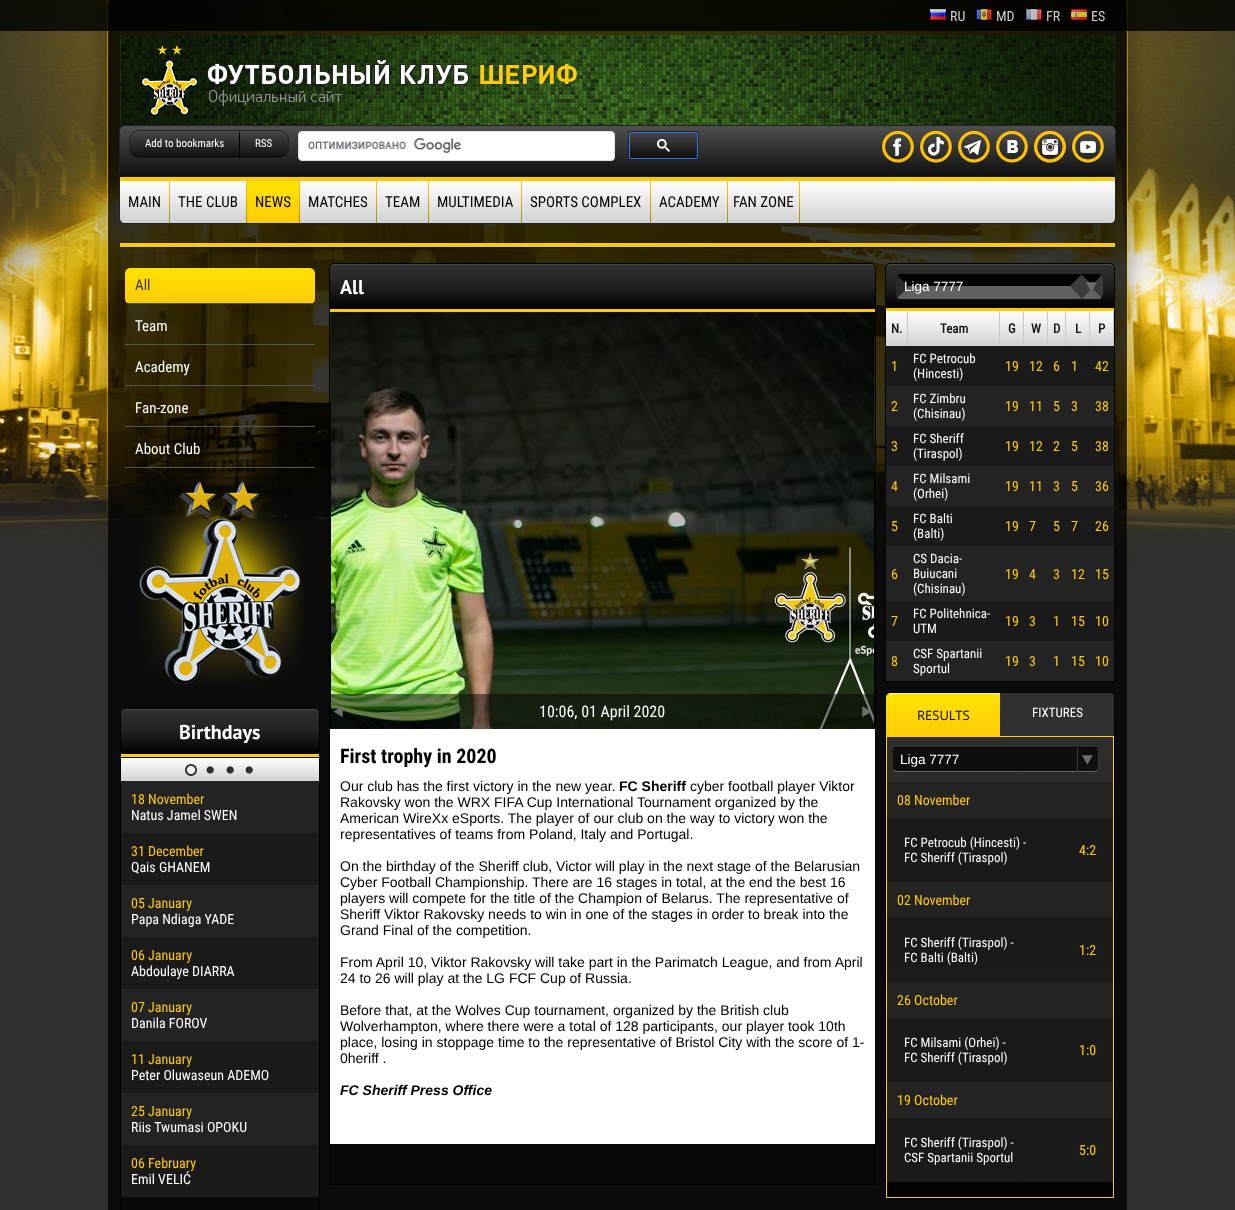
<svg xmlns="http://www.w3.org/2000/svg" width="1235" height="1210">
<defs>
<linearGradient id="g1" gradientUnits="userSpaceOnUse" x1="618" y1="126" x2="618" y2="177"><stop offset="0" stop-color="#4f4f4f"/><stop offset="1" stop-color="#0e0e0e"/></linearGradient>
<clipPath id="clip1"><rect x="130" y="131" width="158" height="28" rx="10"/></clipPath>
<linearGradient id="g2" gradientUnits="userSpaceOnUse" x1="209" y1="132" x2="209" y2="158"><stop offset="0" stop-color="#444"/><stop offset="1" stop-color="#0e0e0e"/></linearGradient>
<clipPath id="clip2"><rect x="629" y="132" width="69" height="27" rx="2"/></clipPath>
<linearGradient id="g3" gradientUnits="userSpaceOnUse" x1="664" y1="133" x2="664" y2="158"><stop offset="0" stop-color="#444"/><stop offset="1" stop-color="#0e0e0e"/></linearGradient>
<linearGradient id="g4" gradientUnits="userSpaceOnUse" x1="618" y1="181" x2="618" y2="223"><stop offset="0" stop-color="#fff"/><stop offset="1" stop-color="#d2d2d2"/></linearGradient>
<linearGradient id="g5" gradientUnits="userSpaceOnUse" x1="273" y1="181" x2="273" y2="223"><stop offset="0" stop-color="#ffe400"/><stop offset="1" stop-color="#ffcc08"/></linearGradient>
<clipPath id="clip3"><rect x="125" y="268" width="190" height="36" rx="5"/></clipPath>
<linearGradient id="g6" gradientUnits="userSpaceOnUse" x1="220" y1="268" x2="220" y2="303"><stop offset="0" stop-color="#ffe201"/><stop offset="1" stop-color="#ffcb08"/></linearGradient>
<clipPath id="clip4"><path d="M126 709h188c3 0 5 2 5 5v43h-198v-43c0-3 2-5 5-5z"/></clipPath>
<linearGradient id="g7" gradientUnits="userSpaceOnUse" x1="220" y1="710" x2="220" y2="754"><stop offset="0" stop-color="#313131"/><stop offset="0.47" stop-color="#212121"/><stop offset="1" stop-color="#000"/></linearGradient>
<linearGradient id="g8" gradientUnits="userSpaceOnUse" x1="220" y1="758" x2="220" y2="781"><stop offset="0" stop-color="#fff"/><stop offset="1" stop-color="#d2d2d2"/></linearGradient>
<clipPath id="clip5"><path d="M335 264h535c3 0 5 2 5 5v43h-545v-43c0-3 2-5 5-5z"/></clipPath>
<linearGradient id="g9" gradientUnits="userSpaceOnUse" x1="603" y1="265" x2="603" y2="309"><stop offset="0" stop-color="#313131"/><stop offset="0.47" stop-color="#212121"/><stop offset="1" stop-color="#000"/></linearGradient>
<clipPath id="clip6"><path d="M891 264h218c3 0 5 2 5 5v42h-228v-42c0-3 2-5 5-5z"/></clipPath>
<linearGradient id="g10" gradientUnits="userSpaceOnUse" x1="1000" y1="265" x2="1000" y2="308"><stop offset="0" stop-color="#313131"/><stop offset="0.47" stop-color="#212121"/><stop offset="1" stop-color="#000"/></linearGradient>
<linearGradient id="g11" gradientUnits="userSpaceOnUse" x1="1000" y1="311" x2="1000" y2="346"><stop offset="0" stop-color="#fff"/><stop offset="1" stop-color="#d2d2d2"/></linearGradient>
<clipPath id="clip7"><path d="M890 692h220c3 0 5 2 5 5v502h-230v-502c0-3 2-5 5-5z"/></clipPath>
<linearGradient id="g12" gradientUnits="userSpaceOnUse" x1="1000" y1="693" x2="1000" y2="1198"><stop offset="0" stop-color="#313131"/><stop offset="0.47" stop-color="#212121"/><stop offset="1" stop-color="#000"/></linearGradient>
<clipPath id="clip8"><path d="M891 693h109v43h-114v-38c0-3 2-5 5-5z"/></clipPath>
<linearGradient id="g13" gradientUnits="userSpaceOnUse" x1="943" y1="652" x2="943" y2="694"><stop offset="0" stop-color="#ffe300"/><stop offset="0.47" stop-color="#ffd804"/><stop offset="1" stop-color="#ffcc08"/></linearGradient>
<linearGradient id="g14" gradientUnits="userSpaceOnUse" x1="943" y1="694" x2="943" y2="736"><stop offset="0" stop-color="#ffe300"/><stop offset="0.47" stop-color="#ffd804"/><stop offset="1" stop-color="#ffcc08"/></linearGradient>
</defs>
<rect width="100%" height="100%" fill="#2f2f2f"/>
<image x="0" y="0" width="1235" height="571" href="media/1.png"/>
<path d="M113 0h1009c3 0 5 2 5 5v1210h-1019v-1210c0-3 2-5 5-5z" fill="#000000bf"/>
<rect width="1235" height="31" fill="#000000cc"/>
<rect x="929.5" y="8.5" width="17" height="12" fill="none" stroke="#010100"/>
<image x="930" y="9" width="16" height="11" href="media/2.png"/>
<text x="950" y="21" style="font-family:Roboto Condensed;font-size:14px;fill:#cdcdcc">RU</text>
<rect x="975.5" y="8.5" width="17" height="12" fill="none" stroke="#010100"/>
<image x="976" y="9" width="16" height="11" href="media/3.png"/>
<text x="996" y="21" style="font-family:Roboto Condensed;font-size:14px;fill:#cdcdcc">MD</text>
<rect x="1025.5" y="8.5" width="17" height="12" fill="none" stroke="#010100"/>
<image x="1026" y="9" width="16" height="11" href="media/4.png"/>
<text x="1046" y="21" style="font-family:Roboto Condensed;font-size:14px;fill:#cdcdcc">FR</text>
<image x="1071" y="9" width="16" height="11" href="media/5.png"/>
<text x="1091" y="21" style="font-family:Roboto Condensed;font-size:14px;fill:#cdcdcc">ES</text>
<image x="120" y="35" width="995" height="90" href="media/6.png"/>
<image x="141" y="44" width="436" height="72" href="media/7.png"/>
<rect x="119" y="125" width="997" height="53" rx="6" fill="#222" filter="blur(0.5px)"/>
<path d="M125 126h985c3 0 5 2 5 5v46h-995v-46c0-3 2-5 5-5z" fill="url(#g1)"/>
<rect x="129" y="130" width="160" height="30" rx="11" fill="#222" filter="blur(0.5px)"/>
<g clip-path="url(#clip1)">
<rect x="130" y="132" width="158" height="26" fill="url(#g2)"/>
</g>
<path d="M140 131c-6 0-10 4-10 10c0-5 4-9 10-9h138c6 0 10 4 10 9c0-6-4-10-10-10z" fill="#4d4d4c"/>
<path d="M278 159c6 0 10-4 10-10c0 5-4 9-10 9h-138c-6 0-10-4-10-9c0 6 4 10 10 10z" fill="#2c2b2a"/>
<text x="145" y="147" style="font-family:Roboto Condensed;font-size:11px;fill:#fff">Add to bookmarks</text>
<rect x="239" y="132" width="1" height="26" fill="#000"/>
<text x="255" y="147" style="font-family:Roboto Condensed;font-size:11px;fill:#fff">RSS</text>
<rect x="298.5" y="131.5" width="316" height="29" rx="3.5" fill="#fff" stroke="#dfe1e5"/>
<image x="308" y="138" width="153" height="15" href="media/8.png"/>
<rect x="628" y="131" width="71" height="29" rx="3" fill="#222" filter="blur(0.5px)"/>
<g clip-path="url(#clip2)">
<rect x="629" y="133" width="69" height="25" fill="url(#g3)"/>
</g>
<rect x="629.5" y="132.5" width="68" height="26" rx="1.5" fill="none" stroke="#3079ed"/>
<image x="657" y="139" width="13" height="13" href="media/9.png"/>
<image x="882" y="131" width="32" height="32" href="media/10.png"/>
<image x="920" y="131" width="32" height="32" href="media/11.png"/>
<image x="958" y="131" width="32" height="32" href="media/12.png"/>
<image x="996" y="131" width="32" height="32" href="media/13.png"/>
<image x="1034" y="131" width="32" height="32" href="media/14.png"/>
<image x="1072" y="131" width="32" height="32" href="media/15.png"/>
<rect x="119" y="176" width="997" height="48" rx="6" fill="#222" filter="blur(0.5px)"/>
<path d="M120 181h995v37c0 3-2 5-5 5h-985c-3 0-5-2-5-5z" fill="url(#g4)"/>
<rect x="120" y="177" width="995" height="4" fill="#ffcb08"/>
<image x="169" y="181" width="1" height="42" href="media/16.png"/>
<text x="128" y="207" style="font-family:Roboto Condensed;font-size:15px;fill:#000">MAIN</text>
<image x="246" y="181" width="1" height="42" href="media/16.png"/>
<text x="178" y="207" style="font-family:Roboto Condensed;font-size:15px;fill:#000">THE CLUB</text>
<image x="299" y="181" width="1" height="42" href="media/16.png"/>
<rect x="247" y="181" width="52" height="42" fill="url(#g5)"/>
<text x="255" y="207" style="font-family:Roboto Condensed;font-size:15px;fill:#000">NEWS</text>
<image x="376" y="181" width="1" height="42" href="media/16.png"/>
<text x="308" y="207" style="font-family:Roboto Condensed;font-size:15px;fill:#000">MATCHES</text>
<image x="428" y="181" width="1" height="42" href="media/16.png"/>
<text x="385" y="207" style="font-family:Roboto Condensed;font-size:15px;fill:#000">TEAM</text>
<image x="521" y="181" width="1" height="42" href="media/16.png"/>
<text x="437" y="207" style="font-family:Roboto Condensed;font-size:15px;fill:#000">MULTIMEDIA</text>
<image x="650" y="181" width="1" height="42" href="media/16.png"/>
<text x="530" y="207" style="font-family:Roboto Condensed;font-size:15px;fill:#000">SPORTS COMPLEX</text>
<image x="727" y="181" width="1" height="42" href="media/16.png"/>
<text x="659" y="207" style="font-family:Roboto Condensed;font-size:15px;fill:#000">ACADEMY</text>
<image x="799" y="181" width="1" height="42" href="media/16.png"/>
<text x="733" y="207" style="font-family:Roboto Condensed;font-size:15px;fill:#000">FAN ZONE</text>
<image x="120" y="243" width="995" height="6" href="media/17.png"/>
<image x="173" y="247" width="418" height="8" href="media/18.png"/>
<image x="705" y="247" width="356" height="8" href="media/19.png"/>
<image x="139" y="481" width="165" height="203" href="media/20.png"/>
<g clip-path="url(#clip3)">
<path d="M130 268h180c3 0 5 2 5 5v30h-190v-30c0-3 2-5 5-5z" fill="url(#g6)"/>
</g>
<rect x="128" y="303" width="185" height="1" fill="#555"/>
<text x="135" y="290" style="font-family:Roboto Condensed;font-size:15px;fill:#353636">All</text>
<rect x="125" y="344" width="190" height="1" fill="#555"/>
<text x="135" y="331" style="font-family:Roboto Condensed;font-size:15px;fill:#fff">Team</text>
<rect x="125" y="385" width="190" height="1" fill="#555"/>
<text x="135" y="372" style="font-family:Roboto Condensed;font-size:15px;fill:#fff">Academy</text>
<rect x="125" y="426" width="190" height="1" fill="#555"/>
<text x="135" y="413" style="font-family:Roboto Condensed;font-size:15px;fill:#fff">Fan-zone</text>
<rect x="125" y="467" width="190" height="1" fill="#555"/>
<text x="135" y="454" style="font-family:Roboto Condensed;font-size:15px;fill:#fff">About Club</text>
<path d="M125 708.5h190c2.5 0 4.5 2 4.5 4.5v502.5h-199v-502.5c0-2.5 2-4.5 4.5-4.5z" fill="#080808" stroke="#000"/>
<g clip-path="url(#clip4)">
<rect x="121" y="710" width="198" height="44" fill="url(#g7)"/>
</g>
<path d="M126 709h188c3 0 5 2 5 5c0-2-2-4-5-4h-188c-3 0-5 2-5 4c0-3 2-5 5-5z" fill="#4a4943"/>
<rect x="121" y="754" width="198" height="3" fill="#ffcb08"/>
<text x="179" y="739" style="font-family:PT Sans;font-size:20px;font-weight:bold;fill:#fff">Birthdays</text>
<rect x="121" y="758" width="198" height="23" fill="url(#g8)"/>
<rect x="121" y="757" width="198" height="1" fill="#000"/>
<image x="185" y="764" width="12" height="12" href="media/21.png"/>
<image x="206" y="766" width="8" height="8" href="media/22.png"/>
<image x="226" y="766" width="8" height="8" href="media/22.png"/>
<image x="245" y="766" width="8" height="8" href="media/22.png"/>
<rect x="121" y="781" width="198" height="52" fill="#232323"/>
<text x="131" y="804" style="font-family:Roboto Condensed;font-size:14px;fill:#ffcb08">18 November</text>
<text x="131" y="820" style="font-family:Roboto Condensed;font-size:14px;fill:#fff">Natus Jamel SWEN</text>
<rect x="121" y="833" width="198" height="52" fill="#1a1a1a"/>
<text x="131" y="856" style="font-family:Roboto Condensed;font-size:14px;fill:#ffcb08">31 December</text>
<text x="131" y="872" style="font-family:Roboto Condensed;font-size:14px;fill:#fff">Qais GHANEM</text>
<rect x="121" y="885" width="198" height="52" fill="#232323"/>
<text x="131" y="908" style="font-family:Roboto Condensed;font-size:14px;fill:#ffcb08">05 January</text>
<text x="131" y="924" style="font-family:Roboto Condensed;font-size:14px;fill:#fff">Papa Ndiaga YADE</text>
<rect x="121" y="937" width="198" height="52" fill="#1a1a1a"/>
<text x="131" y="960" style="font-family:Roboto Condensed;font-size:14px;fill:#ffcb08">06 January</text>
<text x="131" y="976" style="font-family:Roboto Condensed;font-size:14px;fill:#fff">Abdoulaye DIARRA</text>
<rect x="121" y="989" width="198" height="52" fill="#232323"/>
<text x="131" y="1012" style="font-family:Roboto Condensed;font-size:14px;fill:#ffcb08">07 January</text>
<text x="131" y="1028" style="font-family:Roboto Condensed;font-size:14px;fill:#fff">Danila FOROV</text>
<rect x="121" y="1041" width="198" height="52" fill="#1a1a1a"/>
<text x="131" y="1064" style="font-family:Roboto Condensed;font-size:14px;fill:#ffcb08">11 January</text>
<text x="131" y="1080" style="font-family:Roboto Condensed;font-size:14px;fill:#fff">Peter Oluwaseun ADEMO</text>
<rect x="121" y="1093" width="198" height="52" fill="#232323"/>
<text x="131" y="1116" style="font-family:Roboto Condensed;font-size:14px;fill:#ffcb08">25 January</text>
<text x="131" y="1132" style="font-family:Roboto Condensed;font-size:14px;fill:#fff">Riis Twumasi OPOKU</text>
<rect x="121" y="1145" width="198" height="52" fill="#1a1a1a"/>
<text x="131" y="1168" style="font-family:Roboto Condensed;font-size:14px;fill:#ffcb08">06 February</text>
<text x="131" y="1184" style="font-family:Roboto Condensed;font-size:14px;fill:#fff">Emil VELIĆ</text>
<path d="M334 263.5h537c2.5 0 4.5 2 4.5 4.5v916.5h-546v-916.5c0-2.5 2-4.5 4.5-4.5z" fill="#0000004d" stroke="#000"/>
<g clip-path="url(#clip5)">
<rect x="330" y="265" width="545" height="44" fill="url(#g9)"/>
</g>
<path d="M335 264h535c3 0 5 2 5 5c0-2-2-4-5-4h-535c-3 0-5 2-5 4c0-3 2-5 5-5z" fill="#4a4943"/>
<rect x="330" y="309" width="545" height="3" fill="#ffcb08"/>
<text x="340" y="294" style="font-family:PT Sans;font-size:20px;font-weight:bold;fill:#fff">All</text>
<image x="331" y="312" width="543" height="417" href="media/23.png"/>
<rect x="330" y="694" width="545" height="35" fill="#00000080"/>
<image x="333" y="706" width="10" height="11" href="media/24.png"/>
<text x="539" y="717" style="font-family:Roboto Condensed;font-size:16px;fill:#fff">10:06, 01 April 2020</text>
<image x="862" y="706" width="9" height="11" href="media/25.png"/>
<rect x="330" y="729" width="545" height="415" fill="#fff"/>
<text x="340" y="763" style="font-family:'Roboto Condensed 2';font-size:20px;font-weight:bold;fill:#000">First trophy in 2020</text>
<text x="340" y="791" style="font-family:Liberation Sans;font-size:14px;fill:#000">Our club has the first victory in the new year.</text>
<text x="619" y="791" style="font-family:Liberation Sans;font-size:14px;font-weight:bold;fill:#000">FC Sheriff</text>
<text x="690" y="791" style="font-family:Liberation Sans;font-size:14px;fill:#000">cyber football player Viktor</text>
<text x="340" y="807" style="font-family:Liberation Sans;font-size:14px;fill:#000">Rakovsky won the WRX FIFA Cup International Tournament organized by the</text>
<text x="340" y="823" style="font-family:Liberation Sans;font-size:14px;fill:#000">American WireXx eSports. The player of our club on the way to victory won the</text>
<text x="340" y="839" style="font-family:Liberation Sans;font-size:14px;fill:#000">representatives of teams from Poland, Italy and Portugal.</text>
<text x="340" y="871" style="font-family:Liberation Sans;font-size:14px;fill:#000">On the birthday of the Sheriff club, Victor will play in the next stage of the Belarusian</text>
<text x="340" y="887" style="font-family:Liberation Sans;font-size:14px;fill:#000">Cyber Football Championship. There are 16 stages in total, at the end the best 16</text>
<text x="340" y="903" style="font-family:Liberation Sans;font-size:14px;fill:#000">players will compete for the title of the Champion of Belarus. The representative of</text>
<text x="340" y="919" style="font-family:Liberation Sans;font-size:14px;fill:#000">Sheriff Viktor Rakovsky needs to win in one of the stages in order to break into the</text>
<text x="340" y="935" style="font-family:Liberation Sans;font-size:14px;fill:#000">Grand Final of the competition.</text>
<text x="340" y="967" style="font-family:Liberation Sans;font-size:14px;fill:#000">From April 10, Viktor Rakovsky will take part in the Parimatch League, and from April</text>
<text x="340" y="983" style="font-family:Liberation Sans;font-size:14px;fill:#000">24 to 26 will play at the LG FCF Cup of Russia.</text>
<text x="340" y="1015" style="font-family:Liberation Sans;font-size:14px;fill:#000">Before that, at the Wolves Cup tournament, organized by the British club</text>
<text x="340" y="1031" style="font-family:Liberation Sans;font-size:14px;fill:#000">Wolverhampton, where there were a total of 128 participants, our player took 10th</text>
<text x="340" y="1047" style="font-family:Liberation Sans;font-size:14px;fill:#000">place, losing in stoppage time to the representative of Bristol City with the score of 1-</text>
<text x="340" y="1063" style="font-family:Liberation Sans;font-size:14px;fill:#000">0heriff .</text>
<text x="340" y="1095" style="font-family:Liberation Sans;font-size:14px;font-weight:bold;font-style:italic;fill:#000">FC Sheriff Press Office</text>
<path d="M890 263.5h220c2.5 0 4.5 2 4.5 4.5v413.5h-229v-413.5c0-2.5 2-4.5 4.5-4.5z" fill="#0000004d" stroke="#000"/>
<g clip-path="url(#clip6)">
<rect x="886" y="265" width="228" height="43" fill="url(#g10)"/>
</g>
<path d="M891 264h218c3 0 5 2 5 5c0-2-2-4-5-4h-218c-3 0-5 2-5 4c0-3 2-5 5-5z" fill="#4a4943"/>
<rect x="886" y="308" width="228" height="3" fill="#ffcb08"/>
<path d="M901 274h181v25h-181c-3 0-5-2-5-5v-15c0-3 2-5 5-5z" fill="#0e0e0e"/>
<path d="M901 274h181l-12 12h-162l-10-10c0-1 1-2 3-2z" fill="#010101"/>
<path d="M1082 274l-12.5 12.5l12.5 12.5z" fill="#3c3c3c"/>
<path d="M1082 299h-182l-3-1l11-12h162z" fill="#616161"/>
<path d="M897.5 297.5l11-11l-11-11c-2.5 3-1.5 9-1.5 12.5c0 2.5-1 7.5 1.5 9.5z" fill="#292929"/>
<text x="904" y="291" style="font-family:Liberation Sans;font-size:13.5px;fill:#fff">Liga 7777</text>
<path d="M1081 274h17c1.5 0 3 .5 3.5 1.5l-9.5 9.5z" fill="#010101"/>
<path d="M1101.5 275.5l-9.5 9.5v3l9.5 9.5c2.5-2 1.5-8 1.5-11c0-3 1-9-1.5-11z" fill="#3c3c3c"/>
<path d="M1101.5 297.5l-9.5-9.5l-11 11h17c1.5 0 3-.5 3.5-1.5z" fill="#616161"/>
<path d="M1081 274l11 11v3l-11 11z" fill="#3c3c3c"/>
<image x="1086" y="282" width="11" height="9" href="media/26.png"/>
<rect x="886" y="311" width="227" height="35" fill="url(#g11)"/>
<rect x="907" y="311" width="1" height="35" fill="#cacaca"/>
<text x="891" y="333" style="font-family:Roboto Condensed;font-size:13px;font-weight:bold;fill:#131414">N.</text>
<rect x="999" y="311" width="1" height="35" fill="#cacaca"/>
<text x="940" y="333" style="font-family:Roboto Condensed;font-size:13px;font-weight:bold;fill:#131414">Team</text>
<rect x="1023" y="311" width="1" height="35" fill="#cacaca"/>
<text x="1008" y="333" style="font-family:Roboto Condensed;font-size:13px;font-weight:bold;fill:#131414">G</text>
<rect x="1047" y="311" width="1" height="35" fill="#cacaca"/>
<text x="1031" y="333" style="font-family:Roboto Condensed;font-size:13px;font-weight:bold;fill:#131414">W</text>
<rect x="1065" y="311" width="1" height="35" fill="#cacaca"/>
<text x="1053" y="333" style="font-family:Roboto Condensed;font-size:13px;font-weight:bold;fill:#131414">D</text>
<rect x="1089" y="311" width="1" height="35" fill="#cacaca"/>
<text x="1075" y="333" style="font-family:Roboto Condensed;font-size:13px;font-weight:bold;fill:#131414">L</text>
<rect x="1113" y="311" width="1" height="35" fill="#cacaca"/>
<text x="1098" y="333" style="font-family:Roboto Condensed;font-size:13px;font-weight:bold;fill:#131414">P</text>
<rect x="886" y="346" width="228" height="40" fill="#1a1a1a"/>
<text x="891" y="371" style="font-family:Roboto Condensed;font-size:14px;fill:#ffcb08">1</text>
<text x="913" y="363" style="font-family:Roboto Condensed;font-size:13px;fill:#fff">FC Petrocub</text>
<text x="913" y="378" style="font-family:Roboto Condensed;font-size:13px;fill:#fff">(Hincesti)</text>
<text x="1005" y="371" style="font-family:Roboto Condensed;font-size:14px;fill:#ffcb08">19</text>
<text x="1029" y="371" style="font-family:Roboto Condensed;font-size:14px;fill:#ffcb08">12</text>
<text x="1053" y="371" style="font-family:Roboto Condensed;font-size:14px;fill:#ffcb08">6</text>
<text x="1071" y="371" style="font-family:Roboto Condensed;font-size:14px;fill:#ffcb08">1</text>
<text x="1095" y="371" style="font-family:Roboto Condensed;font-size:14px;fill:#ffcb08">42</text>
<rect x="886" y="386" width="228" height="40" fill="#232323"/>
<text x="891" y="411" style="font-family:Roboto Condensed;font-size:14px;fill:#ffcb08">2</text>
<text x="913" y="403" style="font-family:Roboto Condensed;font-size:13px;fill:#fff">FC Zimbru</text>
<text x="913" y="418" style="font-family:Roboto Condensed;font-size:13px;fill:#fff">(Chisinau)</text>
<text x="1005" y="411" style="font-family:Roboto Condensed;font-size:14px;fill:#ffcb08">19</text>
<text x="1029" y="411" style="font-family:Roboto Condensed;font-size:14px;fill:#ffcb08">11</text>
<text x="1053" y="411" style="font-family:Roboto Condensed;font-size:14px;fill:#ffcb08">5</text>
<text x="1071" y="411" style="font-family:Roboto Condensed;font-size:14px;fill:#ffcb08">3</text>
<text x="1095" y="411" style="font-family:Roboto Condensed;font-size:14px;fill:#ffcb08">38</text>
<rect x="886" y="426" width="228" height="40" fill="#1a1a1a"/>
<text x="891" y="451" style="font-family:Roboto Condensed;font-size:14px;fill:#ffcb08">3</text>
<text x="913" y="443" style="font-family:Roboto Condensed;font-size:13px;fill:#fff">FC Sheriff</text>
<text x="913" y="458" style="font-family:Roboto Condensed;font-size:13px;fill:#fff">(Tiraspol)</text>
<text x="1005" y="451" style="font-family:Roboto Condensed;font-size:14px;fill:#ffcb08">19</text>
<text x="1029" y="451" style="font-family:Roboto Condensed;font-size:14px;fill:#ffcb08">12</text>
<text x="1053" y="451" style="font-family:Roboto Condensed;font-size:14px;fill:#ffcb08">2</text>
<text x="1071" y="451" style="font-family:Roboto Condensed;font-size:14px;fill:#ffcb08">5</text>
<text x="1095" y="451" style="font-family:Roboto Condensed;font-size:14px;fill:#ffcb08">38</text>
<rect x="886" y="466" width="228" height="40" fill="#232323"/>
<text x="891" y="491" style="font-family:Roboto Condensed;font-size:14px;fill:#ffcb08">4</text>
<text x="913" y="483" style="font-family:Roboto Condensed;font-size:13px;fill:#fff">FC Milsami</text>
<text x="913" y="498" style="font-family:Roboto Condensed;font-size:13px;fill:#fff">(Orhei)</text>
<text x="1005" y="491" style="font-family:Roboto Condensed;font-size:14px;fill:#ffcb08">19</text>
<text x="1029" y="491" style="font-family:Roboto Condensed;font-size:14px;fill:#ffcb08">11</text>
<text x="1053" y="491" style="font-family:Roboto Condensed;font-size:14px;fill:#ffcb08">3</text>
<text x="1071" y="491" style="font-family:Roboto Condensed;font-size:14px;fill:#ffcb08">5</text>
<text x="1095" y="491" style="font-family:Roboto Condensed;font-size:14px;fill:#ffcb08">36</text>
<rect x="886" y="506" width="228" height="40" fill="#1a1a1a"/>
<text x="891" y="531" style="font-family:Roboto Condensed;font-size:14px;fill:#ffcb08">5</text>
<text x="913" y="523" style="font-family:Roboto Condensed;font-size:13px;fill:#fff">FC Balti</text>
<text x="913" y="538" style="font-family:Roboto Condensed;font-size:13px;fill:#fff">(Balti)</text>
<text x="1005" y="531" style="font-family:Roboto Condensed;font-size:14px;fill:#ffcb08">19</text>
<text x="1029" y="531" style="font-family:Roboto Condensed;font-size:14px;fill:#ffcb08">7</text>
<text x="1053" y="531" style="font-family:Roboto Condensed;font-size:14px;fill:#ffcb08">5</text>
<text x="1071" y="531" style="font-family:Roboto Condensed;font-size:14px;fill:#ffcb08">7</text>
<text x="1095" y="531" style="font-family:Roboto Condensed;font-size:14px;fill:#ffcb08">26</text>
<rect x="886" y="546" width="228" height="55" fill="#232323"/>
<text x="891" y="579" style="font-family:Roboto Condensed;font-size:14px;fill:#ffcb08">6</text>
<text x="913" y="563" style="font-family:Roboto Condensed;font-size:13px;fill:#fff">CS Dacia-</text>
<text x="913" y="578" style="font-family:Roboto Condensed;font-size:13px;fill:#fff">Buiucani</text>
<text x="913" y="593" style="font-family:Roboto Condensed;font-size:13px;fill:#fff">(Chisinau)</text>
<text x="1005" y="579" style="font-family:Roboto Condensed;font-size:14px;fill:#ffcb08">19</text>
<text x="1029" y="579" style="font-family:Roboto Condensed;font-size:14px;fill:#ffcb08">4</text>
<text x="1053" y="579" style="font-family:Roboto Condensed;font-size:14px;fill:#ffcb08">3</text>
<text x="1071" y="579" style="font-family:Roboto Condensed;font-size:14px;fill:#ffcb08">12</text>
<text x="1095" y="579" style="font-family:Roboto Condensed;font-size:14px;fill:#ffcb08">15</text>
<rect x="886" y="601" width="228" height="40" fill="#1a1a1a"/>
<text x="891" y="626" style="font-family:Roboto Condensed;font-size:14px;fill:#ffcb08">7</text>
<text x="913" y="618" style="font-family:Roboto Condensed;font-size:13px;fill:#fff">FC Politehnica-</text>
<text x="913" y="633" style="font-family:Roboto Condensed;font-size:13px;fill:#fff">UTM</text>
<text x="1005" y="626" style="font-family:Roboto Condensed;font-size:14px;fill:#ffcb08">19</text>
<text x="1029" y="626" style="font-family:Roboto Condensed;font-size:14px;fill:#ffcb08">3</text>
<text x="1053" y="626" style="font-family:Roboto Condensed;font-size:14px;fill:#ffcb08">1</text>
<text x="1071" y="626" style="font-family:Roboto Condensed;font-size:14px;fill:#ffcb08">15</text>
<text x="1095" y="626" style="font-family:Roboto Condensed;font-size:14px;fill:#ffcb08">10</text>
<rect x="886" y="641" width="228" height="40" fill="#232323"/>
<text x="891" y="666" style="font-family:Roboto Condensed;font-size:14px;fill:#ffcb08">8</text>
<text x="913" y="658" style="font-family:Roboto Condensed;font-size:13px;fill:#fff">CSF Spartanii</text>
<text x="913" y="673" style="font-family:Roboto Condensed;font-size:13px;fill:#fff">Sportul</text>
<text x="1005" y="666" style="font-family:Roboto Condensed;font-size:14px;fill:#ffcb08">19</text>
<text x="1029" y="666" style="font-family:Roboto Condensed;font-size:14px;fill:#ffcb08">3</text>
<text x="1053" y="666" style="font-family:Roboto Condensed;font-size:14px;fill:#ffcb08">1</text>
<text x="1071" y="666" style="font-family:Roboto Condensed;font-size:14px;fill:#ffcb08">15</text>
<text x="1095" y="666" style="font-family:Roboto Condensed;font-size:14px;fill:#ffcb08">10</text>
<g clip-path="url(#clip7)">
<rect x="885" y="693" width="230" height="504" fill="url(#g12)"/>
</g>
<path d="M890 692.5h220c2.5 0 4.5 2 4.5 4.5v501.5h-229v-501.5c0-2.5 2-4.5 4.5-4.5z" fill="none" stroke="#000"/>
<g clip-path="url(#clip8)">
<rect x="886" y="693" width="3" height="1" fill="url(#g13)"/>
<rect x="886" y="694" width="114" height="42" fill="url(#g14)"/>
</g>
<rect x="889" y="693" width="111" height="1" fill="#fffc93"/>
<text x="917" y="720" style="font-family:Open Sans;font-size:13px;fill:#000">RESULTS</text>
<text x="1032" y="717" style="font-family:Roboto Condensed;font-size:13px;fill:#fff">FIXTURES</text>
<rect x="886.5" y="736.5" width="227" height="461" fill="none" stroke="#ffcc08"/>
<path d="M897 747h181v25h-181c-3 0-5-2-5-5v-15c0-3 2-5 5-5z" fill="#0e0e0e"/>
<path d="M897 747c-2 0-3 1-3 2l3-1h180l1-1z" fill="#010101"/>
<path d="M1078 772l-1-1h-180l-3-1l-1 1l3 1z" fill="#616161"/>
<path d="M892 753.5c0-2 .5-3.5 1.5-5l.5 .5c-.5 1-1 2-1 3v15c0 1 .5 2 1 3l-.5 .5c-1-.5-1.5-1.5-1.5-2.5z" fill="#292929"/>
<text x="900" y="764" style="font-family:Liberation Sans;font-size:13.5px;fill:#fff">Liga 7777</text>
<path d="M1077 747h17c3 0 5 2 5 5v15c0 3-2 5-5 5h-17z" fill="#0e0e0e"/>
<path d="M1077 747l1 1h16c1 0 2 .5 3 1l.5-.5c-.5-1-2-1.5-3.5-1.5z" fill="#010101"/>
<path d="M1099 767v-15c0-1.5-.5-3-1.5-3.5l-.5 .5c.5 1 1 2 1 3v15c0 1-.5 2-1 3l.5 .5c1-.5 1.5-2 1.5-3.5z" fill="#3c3c3c"/>
<path d="M1094 772c1.5 0 3-.5 3.5-1.5l-.5-.5c-1 .5-2 1-3 1h-16l-1 1z" fill="#616161"/>
<path d="M1078 748l-1-1v25l1-1z" fill="#3c3c3c"/>
<image x="1082" y="755" width="11" height="10" href="media/27.png"/>
<rect x="887" y="782" width="226" height="36" fill="#232323"/>
<text x="897" y="805" style="font-family:Roboto Condensed;font-size:14px;fill:#ffcb08">08 November</text>
<rect x="887" y="818" width="226" height="64" fill="#1a1a1a"/>
<text x="904" y="847" style="font-family:Roboto Condensed;font-size:13px;fill:#fff">FC Petrocub (Hincesti) -</text>
<text x="904" y="862" style="font-family:Roboto Condensed;font-size:13px;fill:#fff">FC Sheriff (Tiraspol)</text>
<text x="1079" y="855" style="font-family:Roboto Condensed;font-size:14px;fill:#ffcb08">4:2</text>
<text x="897" y="905" style="font-family:Roboto Condensed;font-size:14px;fill:#ffcb08">02 November</text>
<rect x="887" y="918" width="226" height="49" fill="#1a1a1a"/>
<text x="904" y="947" style="font-family:Roboto Condensed;font-size:13px;fill:#fff">FC Sheriff (Tiraspol) -</text>
<text x="904" y="962" style="font-family:Roboto Condensed;font-size:13px;fill:#fff">FC Balti (Balti)</text>
<text x="1079" y="955" style="font-family:Roboto Condensed;font-size:14px;fill:#ffcb08">1:2</text>
<rect x="887" y="982" width="226" height="36" fill="#232323"/>
<text x="897" y="1005" style="font-family:Roboto Condensed;font-size:14px;fill:#ffcb08">26 October</text>
<rect x="887" y="1018" width="226" height="64" fill="#1a1a1a"/>
<text x="904" y="1047" style="font-family:Roboto Condensed;font-size:13px;fill:#fff">FC Milsami (Orhei) -</text>
<text x="904" y="1062" style="font-family:Roboto Condensed;font-size:13px;fill:#fff">FC Sheriff (Tiraspol)</text>
<text x="1079" y="1055" style="font-family:Roboto Condensed;font-size:14px;fill:#ffcb08">1:0</text>
<rect x="887" y="1082" width="226" height="36" fill="#232323"/>
<text x="897" y="1105" style="font-family:Roboto Condensed;font-size:14px;fill:#ffcb08">19 October</text>
<rect x="887" y="1118" width="226" height="64" fill="#1a1a1a"/>
<text x="904" y="1147" style="font-family:Roboto Condensed;font-size:13px;fill:#fff">FC Sheriff (Tiraspol) -</text>
<text x="904" y="1162" style="font-family:Roboto Condensed;font-size:13px;fill:#fff">CSF Spartanii Sportul</text>
<text x="1079" y="1155" style="font-family:Roboto Condensed;font-size:14px;fill:#ffcb08">5:0</text>
</svg>
